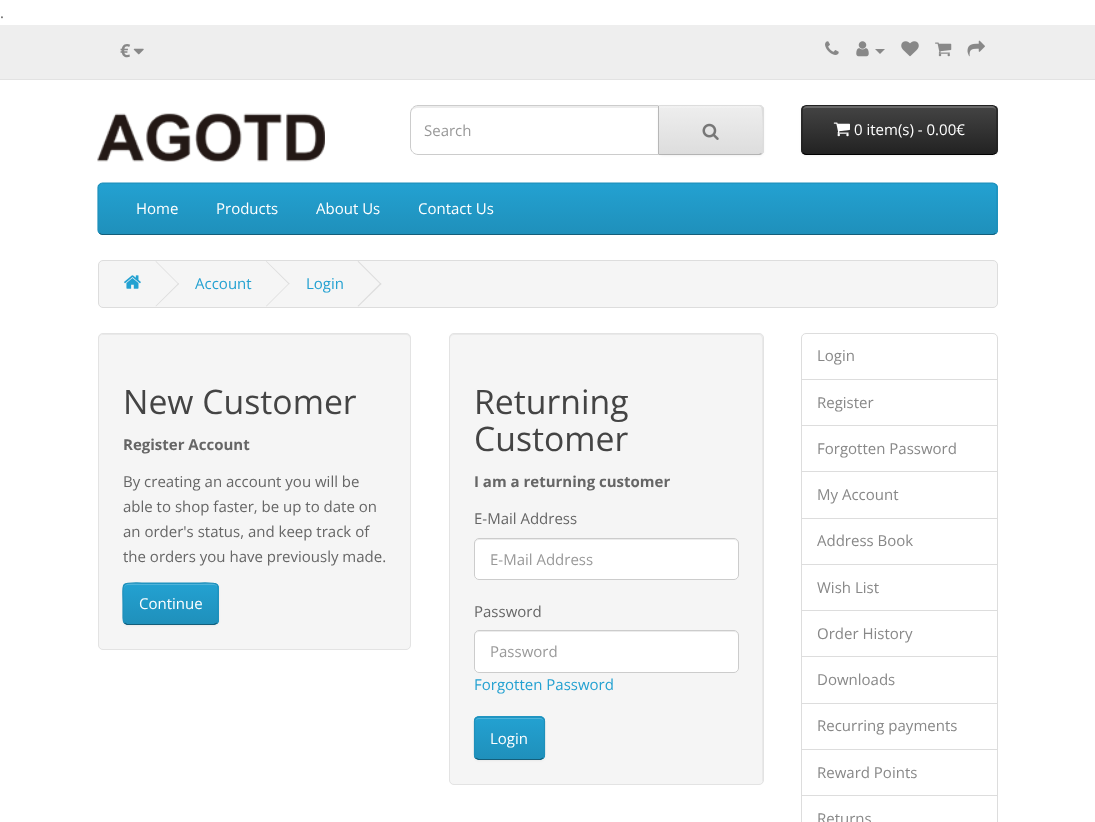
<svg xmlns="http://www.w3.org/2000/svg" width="1095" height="822">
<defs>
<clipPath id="clip1"><path d="M658 105h101c3 0 5 2 5 5v40c0 3-2 5-5 5h-101z"/></clipPath>
<linearGradient id="g1" gradientUnits="userSpaceOnUse" x1="711" y1="106" x2="711" y2="154"><stop offset="0" stop-color="#eee"/><stop offset="1" stop-color="#ddd"/></linearGradient>
<clipPath id="clip2"><rect x="801" y="105" width="197" height="50" rx="5"/></clipPath>
<linearGradient id="g2" gradientUnits="userSpaceOnUse" x1="899" y1="106" x2="899" y2="154"><stop offset="0" stop-color="#444"/><stop offset="1" stop-color="#222"/></linearGradient>
<clipPath id="clip3"><rect x="98" y="183" width="900" height="52" rx="5"/></clipPath>
<linearGradient id="g3" gradientUnits="userSpaceOnUse" x1="548" y1="184" x2="548" y2="234"><stop offset="0" stop-color="#23a1d1"/><stop offset="1" stop-color="#1f90bb"/></linearGradient>
<clipPath id="clip4"><rect x="123" y="583" width="96" height="42" rx="5"/></clipPath>
<linearGradient id="g4" gradientUnits="userSpaceOnUse" x1="171" y1="584" x2="171" y2="624"><stop offset="0" stop-color="#23a1d1"/><stop offset="1" stop-color="#1f90bb"/></linearGradient>
<clipPath id="clip5"><rect x="474" y="716" width="71" height="44" rx="5"/></clipPath>
<linearGradient id="g5" gradientUnits="userSpaceOnUse" x1="509" y1="718" x2="509" y2="759"><stop offset="0" stop-color="#23a1d1"/><stop offset="1" stop-color="#1f90bb"/></linearGradient>
</defs>
<rect width="100%" height="100%" fill="#fff"/>
<text x="0" y="18" style="font-family:Open Sans;font-size:15px;fill:#666">.</text>
<rect y="25" width="1095" height="54" fill="#eee"/>
<rect y="79" width="1095" height="1" fill="#e2e2e2"/>
<text x="120" y="57" style="font-family:Open Sans;font-size:18px;font-weight:bold;fill:#888">€</text>
<image x="133" y="48" width="11" height="7" href="media/1.png"/>
<image x="825" y="41" width="14" height="14" href="media/2.png"/>
<image x="856" y="41" width="13" height="16" href="media/3.png"/>
<path d="M875 49h10l-5 5z" fill="#888"/>
<image x="901" y="41" width="18" height="16" href="media/4.png"/>
<image x="935" y="42" width="17" height="15" href="media/5.png"/>
<image x="967" y="40" width="18" height="17" href="media/6.png"/>
<image x="97" y="113" width="228" height="49" href="media/7.png"/>
<path d="M418 108h240v-2h-241c-3 0-6 3-6 6v2c0-4 3-6 7-6z" fill="#ececec"/>
<path d="M418 105.5h240.5v49h-240.5c-4 0-7.5-3.5-7.5-7.5v-34c0-4 3.5-7.5 7.5-7.5z" fill="none" stroke="#ccc"/>
<text x="424" y="136" style="font-family:Open Sans;font-size:15px;fill:#999">Search</text>
<rect x="658" y="106" width="106" height="50" rx="5" fill="#0000000d" filter="blur(1px)"/>
<path d="M658 105h101c3 0 5 2 5 5v40c0 3-2 5-5 5h-101z" fill="#e7e7e7"/>
<g clip-path="url(#clip1)">
<rect x="659" y="106" width="105" height="48" fill="url(#g1)"/>
</g>
<path d="M659 108h100c5 0 3 7 3 10v35c0-1 1-2 1-3v-40c0-2-2-4-4-4h-100z" fill="#ffffff33"/>
<path d="M658 105l1 1h100l2 1l1-1c0-1-2-1-3-1z" fill="#ddd"/>
<path d="M764 152l-2 2l-1-1c2-3 2-43 0-46l1-1l2 2z" fill="#ddd"/>
<path d="M658 155h102l2-1l-1-1l-2 1h-100z" fill="#b3b3b3"/>
<rect x="658" y="106" width="1" height="48" fill="#b7b7b7"/>
<image x="702" y="123" width="17" height="17" href="media/8.png"/>
<rect x="801" y="106" width="197" height="50" rx="5" fill="#0000000d" filter="blur(1px)"/>
<g clip-path="url(#clip2)">
<rect x="801" y="106" width="197" height="48" fill="url(#g2)"/>
</g>
<path d="M806 108h186c3 0 4 1 4 3v-1c0-2-2-4-4-4h-185c-2 0-3 1-4 3z" fill="#696969"/>
<path d="M995.5 153c-.5 1-2 1.5-3 1.5h-186.5c-1 0-2-.5-3-1.5" fill="none" stroke="#000" stroke-width="1.2"/>
<path d="M803 153c-.5-.5-1-2-1-3v-40c0-1 .5-2.5 1-3c1-1 2-1.5 3-1.5h186.5c1 0 2.5 .5 3 1.5c1 .5 1.5 2 1.5 3v40c0 1-.5 2.5-1.5 3" fill="none" stroke="#222" stroke-width="1.2"/>
<image x="833" y="122" width="17" height="15" href="media/9.png"/>
<text x="854" y="135" style="font-family:Open Sans;font-size:15px;fill:#fff">0 item(s) - 0.00€</text>
<rect x="98" y="183" width="900" height="52" rx="5" fill="#229ac8"/>
<g clip-path="url(#clip3)">
<rect x="98" y="184" width="900" height="50" fill="url(#g3)"/>
</g>
<path d="M995.5 233c-.5 1-2 1.5-3 1.5h-890c-1 0-2.5-.5-3-1.5" fill="none" stroke="#145e7a" stroke-width="1.2"/>
<path d="M99.5 233c-1-.5-1.5-2-1.5-3v-42.5c0-1 .5-2.5 1.5-3c.5-1 2-1.5 3-1.5h890c1 0 2.5 .5 3 1.5c1 .5 1.5 2 1.5 3v42.5c0 1-.5 2.5-1.5 3" fill="none" stroke="#1f90bb" stroke-width="1.2"/>
<text x="136" y="214" style="font-family:Open Sans;font-size:15px;fill:#fff">Home</text>
<text x="216" y="214" style="font-family:Open Sans;font-size:15px;fill:#fff">Products</text>
<text x="316" y="214" style="font-family:Open Sans;font-size:15px;fill:#fff">About Us</text>
<text x="418" y="214" style="font-family:Open Sans;font-size:15px;fill:#fff">Contact Us</text>
<rect x="98.5" y="260.5" width="899" height="47" rx="4.5" fill="#f5f5f5" stroke="#ddd"/>
<image x="124" y="275" width="17" height="14" href="media/10.png"/>
<path d="M155.5 261.5l.5-.5l23 23l-.5 .5z" fill="#ddd"/>
<path d="M155.5 306l23-23l.5 1l-23 22.5z" fill="#ddd"/>
<text x="195" y="289" style="font-family:Open Sans;font-size:15px;fill:#23a1d1">Account</text>
<path d="M266 261.5l.5-.5l23 22.5l-.5 1z" fill="#ddd"/>
<path d="M266 306l23-23l.5 .5l-23 23z" fill="#ddd"/>
<text x="306" y="289" style="font-family:Open Sans;font-size:15px;fill:#23a1d1">Login</text>
<path d="M357.5 261.5l1-.5l23 23l-1 .5z" fill="#ddd"/>
<path d="M357.5 306l23-23l1 1l-23 22.5z" fill="#ddd"/>
<rect x="98" y="333" width="313" height="317" rx="5" fill="#f5f5f5"/>
<path d="M102 335h304c2 0 4 2 4 4c0-3-1-5-4-5h-303l-3 1c-1 1-1 3-1 4c0-2 1-4 3-4z" fill="#e9e9e9"/>
<rect x="98.5" y="333.5" width="312" height="316" rx="4.5" fill="none" stroke="#e3e3e3"/>
<text x="123" y="414" style="font-family:Open Sans;font-size:33.75px;fill:#444">New Customer</text>
<text x="123" y="450" style="font-family:Open Sans;font-size:15px;font-weight:bold;fill:#666">Register Account</text>
<text x="123" y="487" style="font-family:Open Sans;font-size:15px;fill:#666">By creating an account you will be</text>
<text x="123" y="512" style="font-family:Open Sans;font-size:15px;fill:#666">able to shop faster, be up to date on</text>
<text x="123" y="537" style="font-family:Open Sans;font-size:15px;fill:#666">an order's status, and keep track of</text>
<text x="123" y="562" style="font-family:Open Sans;font-size:15px;fill:#666">the orders you have previously made.</text>
<rect x="123" y="584" width="96" height="42" rx="5" fill="#0000000d" filter="blur(1px)"/>
<rect x="123" y="583" width="96" height="42" rx="5" fill="#229ac8"/>
<g clip-path="url(#clip4)">
<rect x="123" y="584" width="96" height="40" fill="url(#g4)"/>
</g>
<path d="M128 585h86c2 0 4 2 4 4c0-9-14-5-18-5h-58c-4 0-18-4-18 5c0-2 1-4 4-4z" fill="#ffffff33"/>
<path d="M217 623l-3 1.5h-87l-2.5-1.5" fill="none" stroke="#145e7a" stroke-width="1.2"/>
<path d="M124.5 623c-2-2-1.5-6-1.5-8.5v-10.5c0-23-4-21 19-21h57.5c22.5 0 18.5-2 18.5 21v10.5c0 2.5 1 6.5-1 8.5" fill="none" stroke="#1f90bb" stroke-width="1.2"/>
<text x="139" y="609" style="font-family:Open Sans;font-size:15px;fill:#fff">Continue</text>
<rect x="449" y="333" width="315" height="452" rx="5" fill="#f5f5f5"/>
<path d="M454 335h305c2 0 3 2 3 4v442v2c0-1 1-2 1-3v-442c0-2-2-4-4-4h-305c-2 0-4 2-4 4v1c0-2 2-4 4-4z" fill="#e9e9e9"/>
<rect x="449.5" y="333.5" width="314" height="451" rx="4.5" fill="none" stroke="#e3e3e3"/>
<text x="474" y="414" style="font-family:Open Sans;font-size:33.75px;fill:#444">Returning</text>
<text x="474" y="451" style="font-family:Open Sans;font-size:33.75px;fill:#444">Customer</text>
<text x="474" y="487" style="font-family:Open Sans;font-size:15px;font-weight:bold;fill:#666">I am a returning customer</text>
<text x="474" y="524" style="font-family:Open Sans;font-size:15px;fill:#666">E-Mail Address</text>
<rect x="474" y="538" width="265" height="42" rx="5" fill="#fff"/>
<path d="M479 540h255c2 0 4 2 4 4v-1c0-2-2-4-4-4h-255c-2 0-4 2-4 4v1c0-2 2-4 4-4z" fill="#ececec"/>
<rect x="474.5" y="538.5" width="264" height="41" rx="4.5" fill="none" stroke="#ccc"/>
<text x="490" y="565" style="font-family:Open Sans;font-size:15px;fill:#999">E-Mail Address</text>
<text x="474" y="617" style="font-family:Open Sans;font-size:15px;fill:#666">Password</text>
<rect x="474" y="630" width="265" height="43" rx="5" fill="#fff"/>
<path d="M479 632h255c2 0 4 2 4 4v-1c0-2-2-4-4-4h-255c-2 0-4 2-4 4v1c0-2 2-4 4-4z" fill="#ececec"/>
<rect x="474.5" y="630.5" width="264" height="42" rx="4.5" fill="none" stroke="#ccc"/>
<text x="490" y="657" style="font-family:Open Sans;font-size:15px;fill:#999">Password</text>
<text x="474" y="690" style="font-family:Open Sans;font-size:15px;fill:#23a1d1">Forgotten Password</text>
<rect x="474" y="718" width="71" height="43" rx="5" fill="#0000000d" filter="blur(1px)"/>
<rect x="474" y="716" width="71" height="44" rx="5" fill="#229ac8"/>
<g clip-path="url(#clip5)">
<rect x="474" y="718" width="71" height="41" fill="url(#g5)"/>
</g>
<path d="M479 719h61c2 0 4 1 4 3c0-2-2-4-4-4h-61c-2 0-4 2-4 4c0-2 2-3 4-3z" fill="#4fb4da"/>
<path d="M543 758l-2.5 1.5h-62l-3-1.5" fill="none" stroke="#145e7a" stroke-width="1.2"/>
<path d="M475.5 758c-.5-.5-1-2-1-3v-34c0-1 .5-2 1-3c1-.5 2-1 3.5-1h61c1 0 2.5 .5 3 1c1 1 1.5 2 1.5 3v34c0 1-.5 2.5-1.5 3" fill="none" stroke="#1f90bb" stroke-width="1.2"/>
<text x="490" y="744" style="font-family:Open Sans;font-size:15px;fill:#fff">Login</text>
<path d="M806 333.5h187c2.5 0 4.5 2 4.5 4.5v41.5h-196v-41.5c0-2.5 2-4.5 4.5-4.5z" fill="none" stroke="#ddd"/>
<text x="817" y="361" style="font-family:Open Sans;font-size:15px;fill:#888">Login</text>
<rect x="801.5" y="379.5" width="196" height="46" fill="none" stroke="#ddd"/>
<text x="817" y="408" style="font-family:Open Sans;font-size:15px;fill:#888">Register</text>
<rect x="801.5" y="425.5" width="196" height="47" fill="none" stroke="#ddd"/>
<text x="817" y="454" style="font-family:Open Sans;font-size:15px;fill:#888">Forgotten Password</text>
<rect x="802" y="472" width="195" height="1" fill="#fff"/>
<rect x="801.5" y="471.5" width="196" height="47" fill="none" stroke="#ddd"/>
<text x="817" y="500" style="font-family:Open Sans;font-size:15px;fill:#888">My Account</text>
<rect x="801.5" y="518.5" width="196" height="46" fill="none" stroke="#ddd"/>
<text x="817" y="546" style="font-family:Open Sans;font-size:15px;fill:#888">Address Book</text>
<rect x="801.5" y="564.5" width="196" height="46" fill="none" stroke="#ddd"/>
<text x="817" y="593" style="font-family:Open Sans;font-size:15px;fill:#888">Wish List</text>
<rect x="801.5" y="610.5" width="196" height="47" fill="none" stroke="#ddd"/>
<text x="817" y="639" style="font-family:Open Sans;font-size:15px;fill:#888">Order History</text>
<rect x="802" y="657" width="195" height="1" fill="#fff"/>
<rect x="801.5" y="656.5" width="196" height="47" fill="none" stroke="#ddd"/>
<text x="817" y="685" style="font-family:Open Sans;font-size:15px;fill:#888">Downloads</text>
<rect x="801.5" y="703.5" width="196" height="46" fill="none" stroke="#ddd"/>
<text x="817" y="731" style="font-family:Open Sans;font-size:15px;fill:#888">Recurring payments</text>
<rect x="801.5" y="749.5" width="196" height="46" fill="none" stroke="#ddd"/>
<text x="817" y="778" style="font-family:Open Sans;font-size:15px;fill:#888">Reward Points</text>
<rect x="801.5" y="795.5" width="196" height="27" fill="none" stroke="#ddd"/>
<text x="817" y="824" style="font-family:Open Sans;font-size:15px;fill:#888">Returns</text>
</svg>
